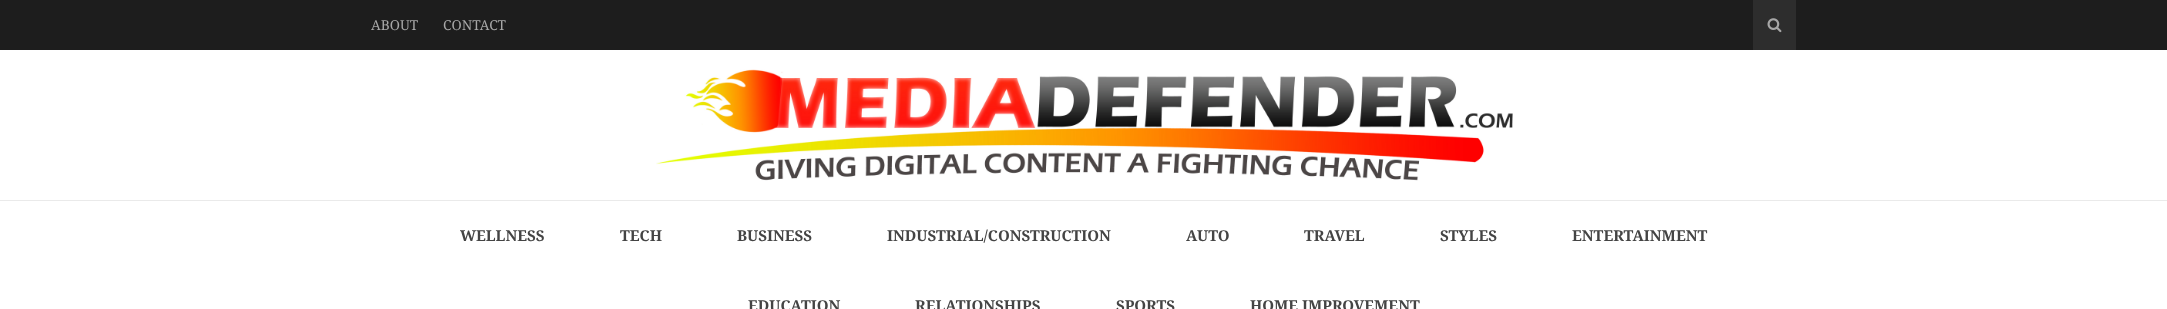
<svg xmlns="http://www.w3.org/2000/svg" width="2167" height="309">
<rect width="100%" height="100%" fill="#fff"/>
<rect width="2167" height="50" fill="#1d1d1d"/>
<text x="371" y="30" style="font-family:Noto Serif;font-size:13.75px;fill:#a7a7a7">ABOUT</text>
<text x="443" y="30" style="font-family:Noto Serif;font-size:13.75px;fill:#a7a7a7">CONTACT</text>
<rect x="1753" width="43" height="50" fill="#2d2d2d"/>
<image x="1767" y="18" width="15" height="15" href="media/1.png"/>
<rect y="200" width="2167" height="1" fill="#eaeaea"/>
<image x="656" y="69" width="857" height="112" href="media/2.png"/>
<text x="460" y="241" style="font-family:Noto Serif;font-size:15px;font-weight:bold;fill:#444">WELLNESS</text>
<text x="620" y="241" style="font-family:Noto Serif;font-size:15px;font-weight:bold;fill:#444">TECH</text>
<text x="737" y="241" style="font-family:Noto Serif;font-size:15px;font-weight:bold;fill:#444">BUSINESS</text>
<text x="887" y="241" style="font-family:Noto Serif;font-size:15px;font-weight:bold;fill:#444">INDUSTRIAL/CONSTRUCTION</text>
<text x="1186" y="241" style="font-family:Noto Serif;font-size:15px;font-weight:bold;fill:#444">AUTO</text>
<text x="1304" y="241" style="font-family:Noto Serif;font-size:15px;font-weight:bold;fill:#444">TRAVEL</text>
<text x="1440" y="241" style="font-family:Noto Serif;font-size:15px;font-weight:bold;fill:#444">STYLES</text>
<text x="1572" y="241" style="font-family:Noto Serif;font-size:15px;font-weight:bold;fill:#444">ENTERTAINMENT</text>
<text x="748" y="311" style="font-family:Noto Serif;font-size:15px;font-weight:bold;fill:#444">EDUCATION</text>
<text x="915" y="311" style="font-family:Noto Serif;font-size:15px;font-weight:bold;fill:#444">RELATIONSHIPS</text>
<text x="1116" y="311" style="font-family:Noto Serif;font-size:15px;font-weight:bold;fill:#444">SPORTS</text>
<text x="1250" y="311" style="font-family:Noto Serif;font-size:15px;font-weight:bold;fill:#444">HOME IMPROVEMENT</text>
</svg>
